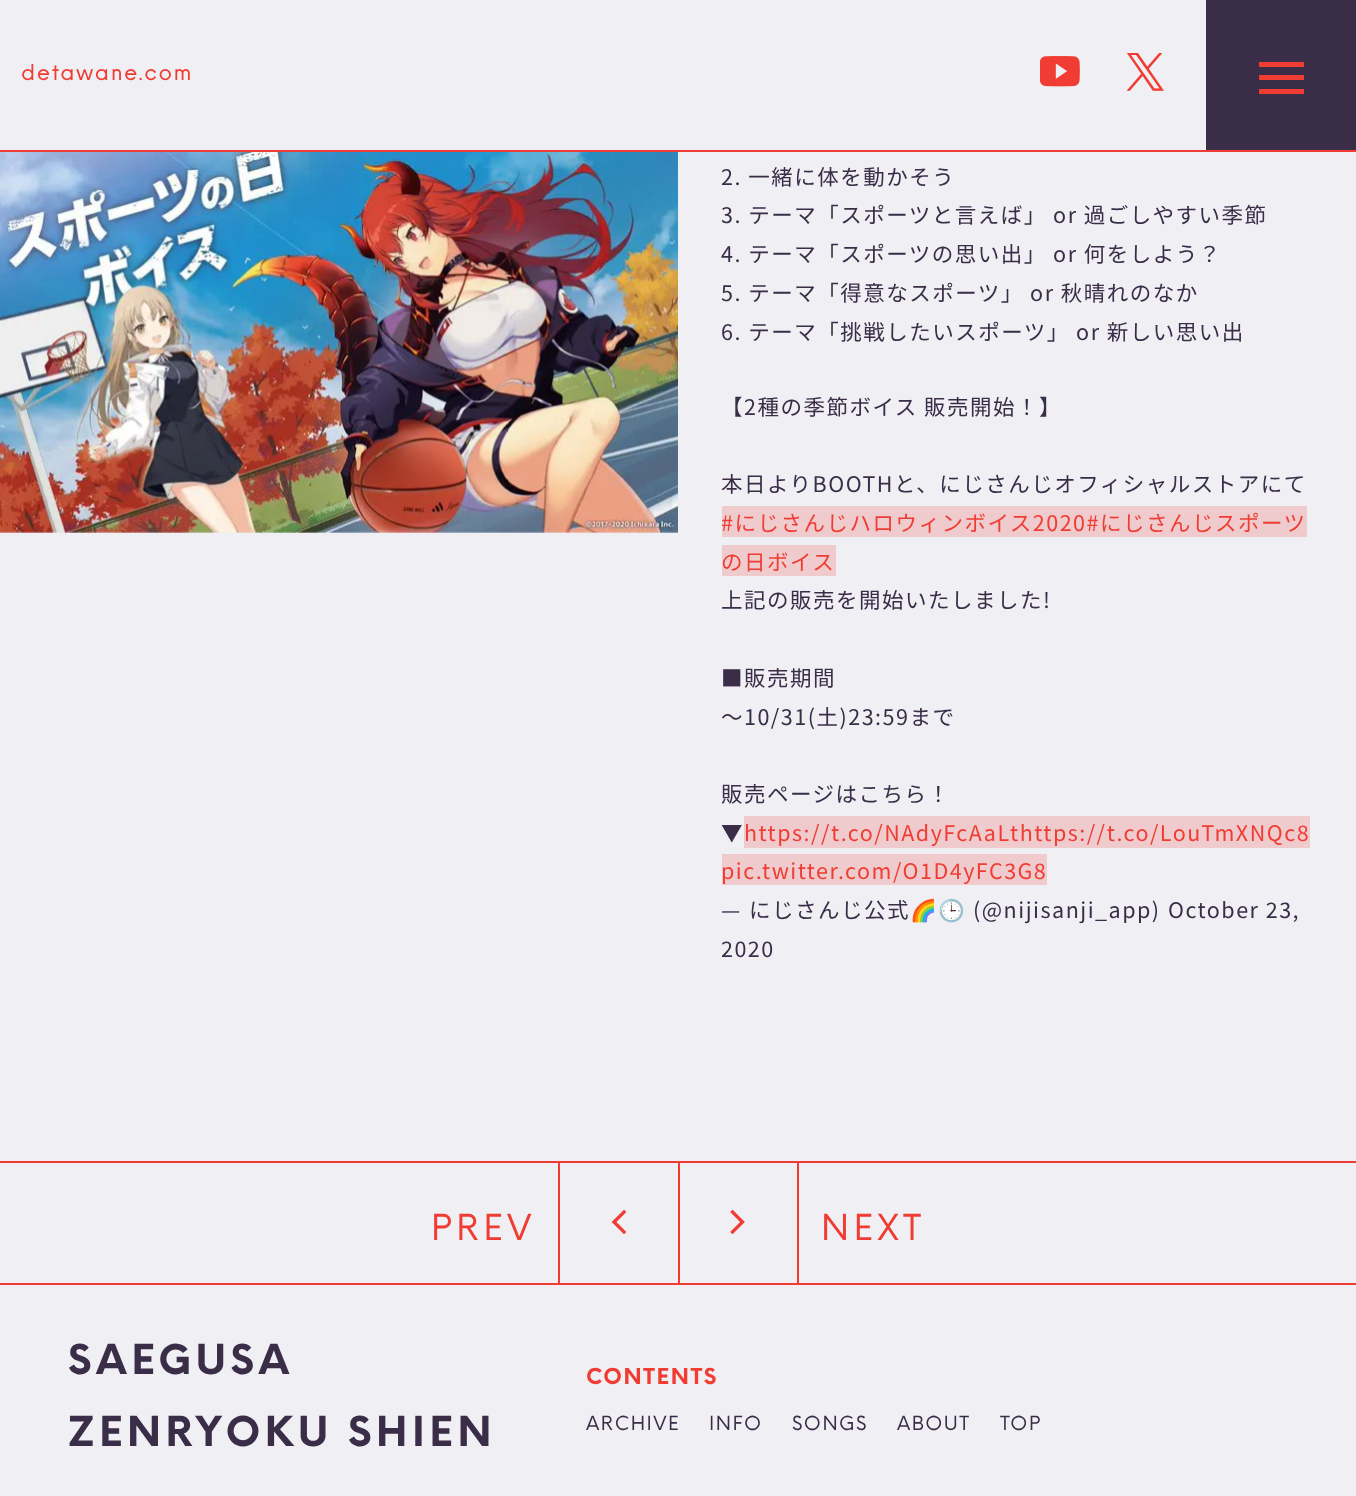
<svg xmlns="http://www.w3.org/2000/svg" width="1356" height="1496">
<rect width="100%" height="100%" fill="#efeff4"/>
<rect y="150" width="1356" height="2" fill="#f03c32"/>
<text x="21" y="80" style="font-family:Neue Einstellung;font-size:21.5px;letter-spacing:1.5px;fill:#f03c32">detawane.com</text>
<image x="1040" y="56" width="40" height="31" href="media/1.png"/>
<image x="1127" y="53" width="37" height="38" href="media/2.png"/>
<rect x="1206" width="150" height="150" fill="#392d47"/>
<rect x="1259" y="62" width="45" height="5" fill="#f03c32"/>
<rect x="1259" y="75" width="45" height="5" fill="#f03c32"/>
<rect x="1259" y="89" width="45" height="5" fill="#f03c32"/>
<image x="0" y="152" width="678" height="381" href="media/3.png"/>
<text x="721" y="185" style="font-family:Noto Sans JP;font-size:21.5px;letter-spacing:1.5px;fill:#392d47">2. 一緒に体を動かそう</text>
<text x="721" y="223" style="font-family:Noto Sans JP;font-size:21.5px;letter-spacing:1.5px;fill:#392d47">3. テーマ「スポーツと言えば」 or 過ごしやすい季節</text>
<text x="721" y="262" style="font-family:Noto Sans JP;font-size:21.5px;letter-spacing:1.5px;fill:#392d47">4. テーマ「スポーツの思い出」 or 何をしよう？</text>
<text x="721" y="301" style="font-family:Noto Sans JP;font-size:21.5px;letter-spacing:1.5px;fill:#392d47">5. テーマ「得意なスポーツ」 or 秋晴れのなか</text>
<text x="721" y="340" style="font-family:Noto Sans JP;font-size:21.5px;letter-spacing:1.5px;fill:#392d47">6. テーマ「挑戦したいスポーツ」 or 新しい思い出</text>
<text x="721" y="415" style="font-family:Noto Sans JP;font-size:21.5px;letter-spacing:1.5px;fill:#392d47">【2種の季節ボイス 販売開始！】</text>
<text x="721" y="492" style="font-family:Noto Sans JP;font-size:21.5px;letter-spacing:1.5px;fill:#392d47">本日よりBOOTHと、にじさんじオフィシャルストアにて</text>
<rect x="722" y="506" width="585" height="31" fill="#efcbcd"/>
<text x="721" y="531" style="font-family:Noto Sans JP;font-size:21.5px;letter-spacing:1.5px;fill:#f03c32">#にじさんじハロウィンボイス2020#にじさんじスポーツ</text>
<rect x="722" y="545" width="114" height="31" fill="#efcbcd"/>
<text x="721" y="570" style="font-family:Noto Sans JP;font-size:21.5px;letter-spacing:1.5px;fill:#f03c32">の日ボイス</text>
<text x="721" y="608" style="font-family:Noto Sans JP;font-size:21.5px;letter-spacing:1.5px;fill:#392d47">上記の販売を開始いたしました!</text>
<text x="721" y="686" style="font-family:Noto Sans JP;font-size:21.5px;letter-spacing:1.5px;fill:#392d47">■販売期間</text>
<text x="721" y="725" style="font-family:Noto Sans JP;font-size:21.5px;letter-spacing:1.5px;fill:#392d47">～10/31(土)23:59まで</text>
<text x="721" y="802" style="font-family:Noto Sans JP;font-size:21.5px;letter-spacing:1.5px;fill:#392d47">販売ページはこちら！</text>
<text x="721" y="841" style="font-family:Noto Sans JP;font-size:21.5px;letter-spacing:1.5px;fill:#392d47">▼</text>
<rect x="744" y="816" width="566" height="32" fill="#efcbcd"/>
<text x="744" y="841" style="font-family:Noto Sans JP;font-size:21.5px;letter-spacing:1.5px;fill:#f03c32">https://t.co/NAdyFcAaLthttps://t.co/LouTmXNQc8</text>
<rect x="722" y="854" width="325" height="31" fill="#efcbcd"/>
<text x="721" y="879" style="font-family:Noto Sans JP;font-size:21.5px;letter-spacing:1.5px;fill:#f03c32">pic.twitter.com/O1D4yFC3G8</text>
<text x="721" y="918" word-spacing="1" style="font-family:Noto Sans JP;font-size:21.5px;letter-spacing:1.5px;fill:#392d47">— にじさんじ公式</text>
<text x="910" y="918" style="font-family:Noto Color Emoji;font-size:21.5px;letter-spacing:1.5px;fill:#392d47">🌈🕒</text>
<text x="973" y="918" style="font-family:Noto Sans JP;font-size:21.5px;letter-spacing:1.5px;fill:#392d47">(@nijisanji_app)</text>
<text x="1168" y="918" style="font-family:Noto Sans JP;font-size:21.5px;letter-spacing:1.5px;fill:#392d47">October 23,</text>
<text x="721" y="957" style="font-family:Noto Sans JP;font-size:21.5px;letter-spacing:1.5px;fill:#392d47">2020</text>
<rect y="1161" width="1356" height="2" fill="#f03c32"/>
<text x="431" y="1240" style="font-family:Neue Einstellung;font-size:35px;letter-spacing:4.5px;fill:#f03c32">PREV</text>
<rect x="558" y="1163" width="2" height="120" fill="#f03c32"/>
<path d="M624 1212l-10 10l10 10" fill="none" stroke="#f03c32" stroke-width="3.3" stroke-linecap="square"/>
<rect x="678" y="1163" width="2" height="120" fill="#f03c32"/>
<rect x="797" y="1163" width="2" height="120" fill="#f03c32"/>
<path d="M732.5 1212l10 10l-10 10" fill="none" stroke="#f03c32" stroke-width="3.3" stroke-linecap="square"/>
<text x="821" y="1240" style="font-family:Neue Einstellung;font-size:35px;letter-spacing:4.5px;fill:#f03c32">NEXT</text>
<rect y="1283" width="1356" height="2" fill="#f03c32"/>
<text x="68" y="1374" style="font-family:Neue Einstellung;font-size:40.25px;font-weight:bold;letter-spacing:4.5px;fill:#392d47">SAEGUSA</text>
<text x="68" y="1446" style="font-family:Neue Einstellung;font-size:40.25px;font-weight:bold;letter-spacing:4.5px;fill:#392d47">ZENRYOKU SHIEN</text>
<text x="586" y="1384" style="font-family:Neue Einstellung;font-size:21.5px;font-weight:bold;letter-spacing:1.5px;fill:#f03c32">CONTENTS</text>
<text x="586" y="1430" style="font-family:Neue Einstellung;font-size:19px;letter-spacing:1.5px;fill:#392d47">ARCHIVE</text>
<text x="709" y="1430" style="font-family:Neue Einstellung;font-size:19px;letter-spacing:1.5px;fill:#392d47">INFO</text>
<text x="792" y="1430" style="font-family:Neue Einstellung;font-size:19px;letter-spacing:1.5px;fill:#392d47">SONGS</text>
<text x="897" y="1430" style="font-family:Neue Einstellung;font-size:19px;letter-spacing:1.5px;fill:#392d47">ABOUT</text>
<text x="1000" y="1430" style="font-family:Neue Einstellung;font-size:19px;letter-spacing:1.5px;fill:#392d47">TOP</text>
</svg>
